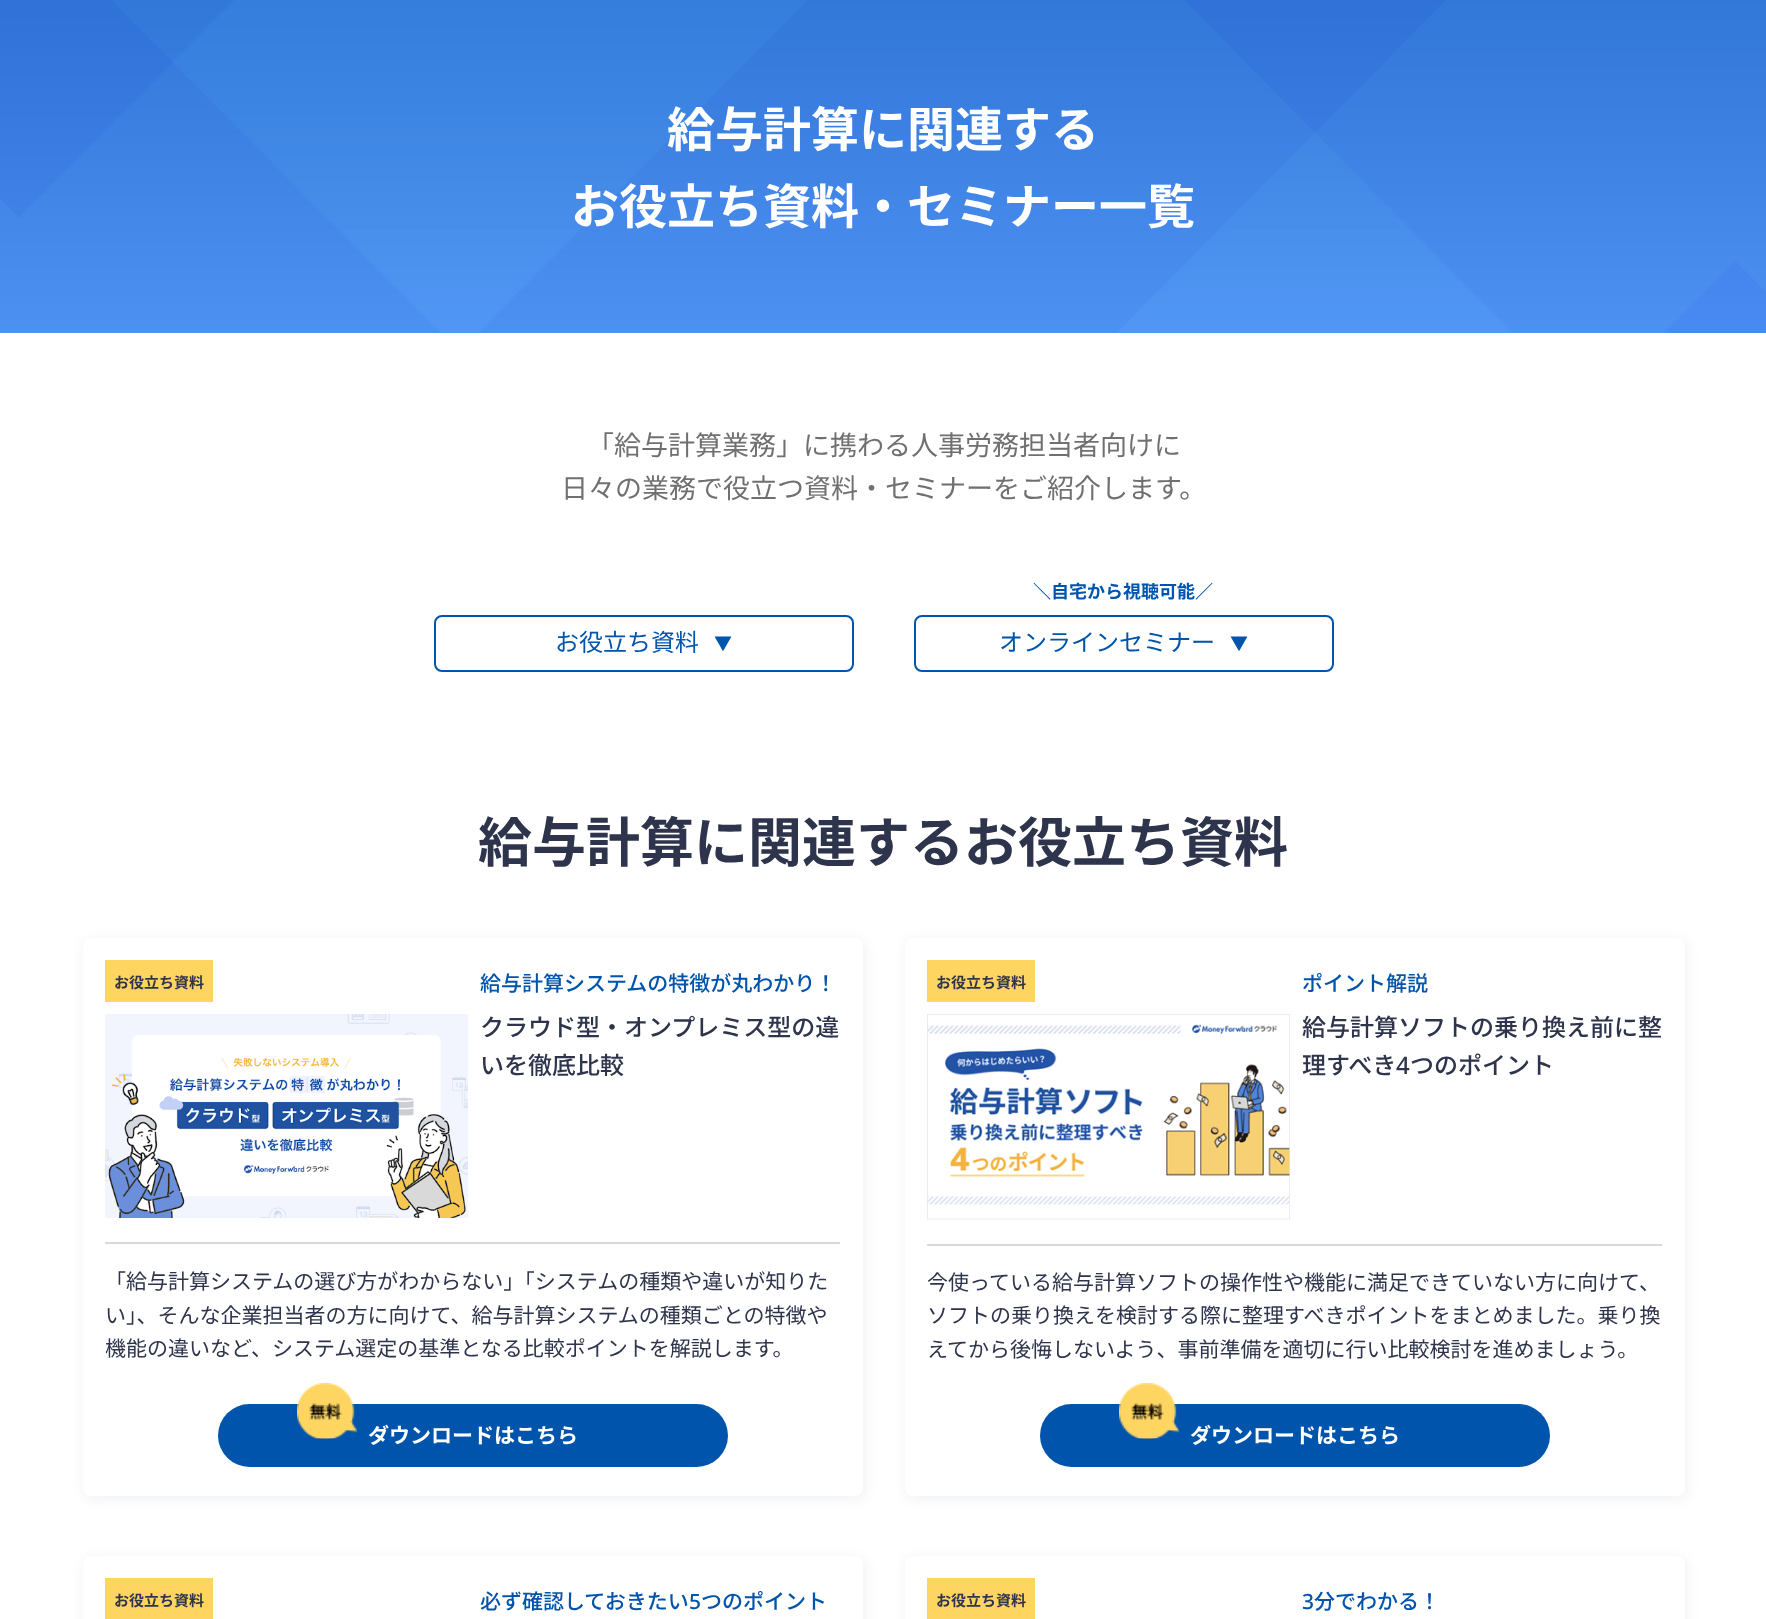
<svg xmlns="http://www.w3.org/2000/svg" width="1766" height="1619">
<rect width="100%" height="100%" fill="#fff"/>
<image x="0" y="0" width="1766" height="333" href="media/1.png"/>
<text x="667" y="147" style="font-family:Noto Sans CJK JP;font-size:48px;font-weight:bold;fill:#fff">給与計算に関連する</text>
<text x="571" y="224" style="font-family:Noto Sans CJK JP;font-size:48px;font-weight:bold;fill:#fff">お役立ち資料・セミナー一覧</text>
<text x="587" y="455" style="font-family:Noto Sans CJK JP;font-size:27px;fill:#707070">「給与計算業務」に携わる人事労務担当者向けに</text>
<text x="561" y="498" style="font-family:Noto Sans CJK JP;font-size:27px;fill:#707070">日々の業務で役立つ資料・セミナーをご紹介します。</text>
<rect x="435" y="616" width="418" height="55" rx="7" fill="none" stroke="#0054ac" stroke-width="2"/>
<text x="555" y="651" style="font-family:Noto Sans CJK JP;font-size:24px;fill:#0054ac">お役立ち資料</text>
<text x="714" y="650" style="font-family:Noto Sans CJK JP;font-size:18px;font-weight:bold;fill:#0054ac">▼</text>
<text x="1033" y="598" style="font-family:Noto Sans CJK JP;font-size:18px;font-weight:bold;fill:#0054ac">＼自宅から視聴可能／</text>
<rect x="915" y="616" width="418" height="55" rx="7" fill="none" stroke="#0054ac" stroke-width="2"/>
<text x="999" y="651" style="font-family:Noto Sans CJK JP;font-size:24px;fill:#0054ac">オンラインセミナー</text>
<text x="1230" y="650" style="font-family:Noto Sans CJK JP;font-size:18px;font-weight:bold;fill:#0054ac">▼</text>
<text x="478" y="862" style="font-family:Noto Sans CJK JP;font-size:54px;font-weight:bold;fill:#2d344b">給与計算に関連するお役立ち資料</text>
<rect x="83" y="939" width="783" height="561" rx="9" fill="#b8bcc92e" filter="blur(6px)"/>
<rect x="83" y="938" width="780" height="558" rx="8" fill="#fff"/>
<rect x="105" y="960" width="108" height="42" fill="#ffd561"/>
<text x="114" y="988" style="font-family:Noto Sans CJK JP;font-size:15px;font-weight:bold;fill:#2d344b">お役立ち資料</text>
<image x="105" y="1014" width="363" height="204" href="media/2.png"/>
<text x="480" y="991" style="font-family:Noto Sans CJK JP;font-size:21px;font-weight:500;fill:#0054ac">給与計算システムの特徴が丸わかり！</text>
<text x="480" y="1036" style="font-family:Noto Sans CJK JP;font-size:24px;font-weight:500;fill:#2d344b">クラウド型・オンプレミス型の違</text>
<text x="480" y="1074" style="font-family:Noto Sans CJK JP;font-size:24px;font-weight:500;fill:#2d344b">いを徹底比較</text>
<rect x="105" y="1242" width="735" height="2" fill="#d9d9d9"/>
<text x="105" y="1289" style="font-family:Noto Sans CJK JP;font-size:21px;fill:#2d344b">「給与計算システムの選び方がわからない」「システムの種類や違いが知りた</text>
<text x="105" y="1323" style="font-family:Noto Sans CJK JP;font-size:21px;fill:#2d344b">い」、そんな企業担当者の方に向けて、給与計算システムの種類ごとの特徴や</text>
<text x="105" y="1356" style="font-family:Noto Sans CJK JP;font-size:21px;fill:#2d344b">機能の違いなど、システム選定の基準となる比較ポイントを解説します。</text>
<rect x="218" y="1404" width="510" height="63" rx="31.5" fill="#0054ac"/>
<image x="297" y="1383" width="60" height="56" href="media/3.png"/>
<text x="368" y="1443" style="font-family:Noto Sans CJK JP;font-size:21px;font-weight:bold;fill:#fff">ダウンロードはこちら</text>
<rect x="905" y="939" width="783" height="561" rx="9" fill="#b8bcc92e" filter="blur(6px)"/>
<rect x="905" y="938" width="780" height="558" rx="8" fill="#fff"/>
<rect x="927" y="960" width="108" height="42" fill="#ffd561"/>
<text x="936" y="988" style="font-family:Noto Sans CJK JP;font-size:15px;font-weight:bold;fill:#2d344b">お役立ち資料</text>
<image x="927" y="1014" width="363" height="206" href="media/4.png"/>
<text x="1302" y="991" style="font-family:Noto Sans CJK JP;font-size:21px;font-weight:500;fill:#0054ac">ポイント解説</text>
<text x="1302" y="1036" style="font-family:Noto Sans CJK JP;font-size:24px;font-weight:500;fill:#2d344b">給与計算ソフトの乗り換え前に整</text>
<text x="1302" y="1074" style="font-family:Noto Sans CJK JP;font-size:24px;font-weight:500;fill:#2d344b">理すべき</text>
<text x="1396" y="1074" style="font-family:Noto Sans;font-size:24px;font-weight:500;fill:#2d344b">4</text>
<text x="1410" y="1074" style="font-family:Noto Sans CJK JP;font-size:24px;font-weight:500;fill:#2d344b">つのポイント</text>
<rect x="927" y="1244" width="735" height="2" fill="#d9d9d9"/>
<text x="927" y="1290" style="font-family:Noto Sans CJK JP;font-size:21px;fill:#2d344b">今使っている給与計算ソフトの操作性や機能に満足できていない方に向けて、</text>
<text x="927" y="1323" style="font-family:Noto Sans CJK JP;font-size:21px;fill:#2d344b">ソフトの乗り換えを検討する際に整理すべきポイントをまとめました。乗り換</text>
<text x="927" y="1357" style="font-family:Noto Sans CJK JP;font-size:21px;fill:#2d344b">えてから後悔しないよう、事前準備を適切に行い比較検討を進めましょう。</text>
<rect x="1040" y="1404" width="510" height="63" rx="31.5" fill="#0054ac"/>
<image x="1119" y="1383" width="60" height="56" href="media/3.png"/>
<text x="1190" y="1443" style="font-family:Noto Sans CJK JP;font-size:21px;font-weight:bold;fill:#fff">ダウンロードはこちら</text>
<rect x="83" y="1557" width="783" height="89" rx="9" fill="#b8bcc92e" filter="blur(6px)"/>
<rect x="83" y="1556" width="780" height="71" rx="8" fill="#fff"/>
<rect x="105" y="1578" width="108" height="41" fill="#ffd561"/>
<text x="114" y="1606" style="font-family:Noto Sans CJK JP;font-size:15px;font-weight:bold;fill:#2d344b">お役立ち資料</text>
<text x="480" y="1609" style="font-family:Noto Sans CJK JP;font-size:21px;font-weight:500;fill:#0054ac">必ず確認しておきたい</text>
<text x="689" y="1609" style="font-family:Noto Sans;font-size:21px;font-weight:500;fill:#0054ac">5</text>
<text x="701" y="1609" style="font-family:Noto Sans CJK JP;font-size:21px;font-weight:500;fill:#0054ac">つのポイント</text>
<rect x="905" y="1557" width="783" height="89" rx="9" fill="#b8bcc92e" filter="blur(6px)"/>
<rect x="905" y="1556" width="780" height="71" rx="8" fill="#fff"/>
<rect x="927" y="1578" width="108" height="41" fill="#ffd561"/>
<text x="936" y="1606" style="font-family:Noto Sans CJK JP;font-size:15px;font-weight:bold;fill:#2d344b">お役立ち資料</text>
<text x="1302" y="1609" style="font-family:Noto Sans;font-size:21px;font-weight:500;fill:#0054ac">3</text>
<text x="1314" y="1609" style="font-family:Noto Sans CJK JP;font-size:21px;font-weight:500;fill:#0054ac">分でわかる！</text>
</svg>
